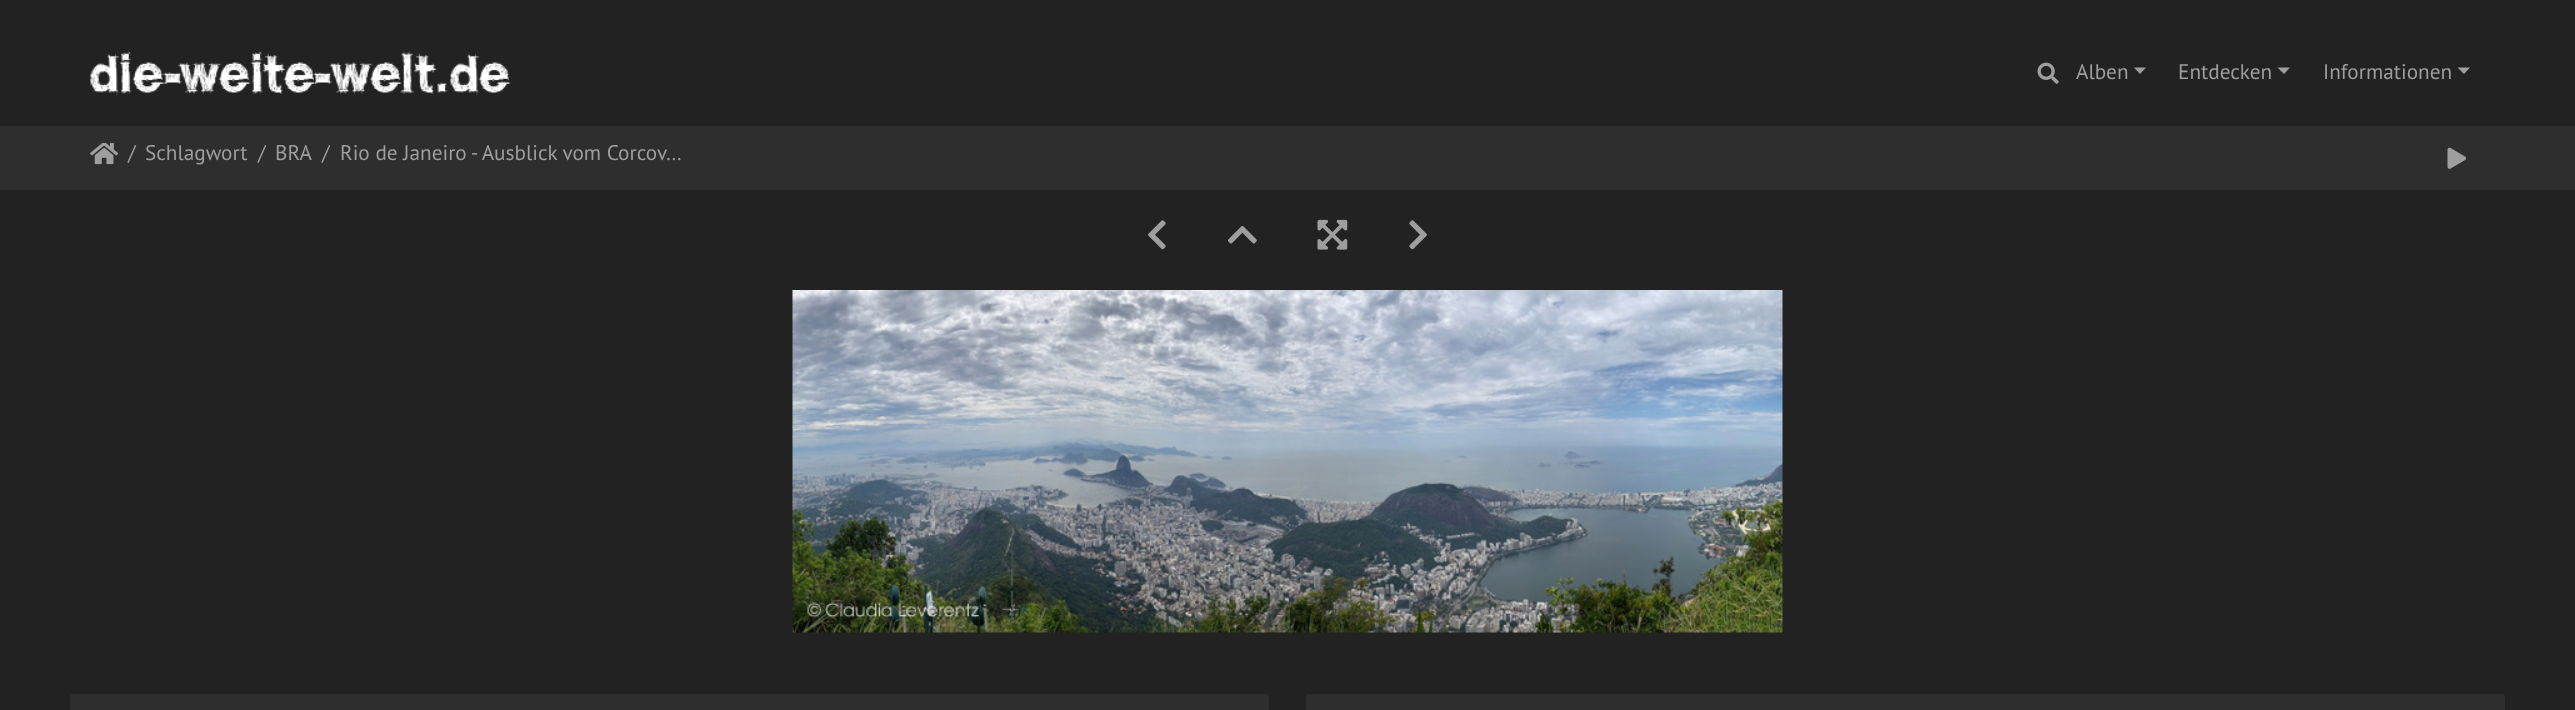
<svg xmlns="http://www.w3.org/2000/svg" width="2575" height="710">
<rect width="100%" height="100%" fill="#222"/>
<image x="90" y="51" width="421" height="44" href="media/1.png"/>
<image x="2037" y="62" width="22" height="22" href="media/2.png"/>
<text x="2076" y="79" style="font-family:PT Sans;font-size:21.25px;fill:#9e9e9e">Alben</text>
<path d="M2134 67.5h12l-6 6.5z" fill="#9e9e9e"/>
<text x="2178" y="79" style="font-family:PT Sans;font-size:21.25px;fill:#9e9e9e">Entdecken</text>
<path d="M2277.5 67.5h12.5l-6 6.5z" fill="#9e9e9e"/>
<text x="2323" y="79" style="font-family:PT Sans;font-size:21.25px;fill:#9e9e9e">Informationen</text>
<path d="M2457.5 67.5h12.5l-6 6.5z" fill="#9e9e9e"/>
<rect y="126" width="2575" height="64" fill="#2e2e2e"/>
<image x="90" y="143" width="28" height="22" href="media/3.png"/>
<text x="128" y="160" style="font-family:PT Sans;font-size:21.25px;fill:#9e9e9e">/</text>
<text x="145" y="160" style="font-family:PT Sans;font-size:21.25px;fill:#9e9e9e">Schlagwort</text>
<text x="258" y="160" style="font-family:PT Sans;font-size:21.25px;fill:#9e9e9e">/</text>
<text x="275" y="160" style="font-family:PT Sans;font-size:21.25px;fill:#9e9e9e">BRA</text>
<text x="322" y="160" style="font-family:PT Sans;font-size:21.25px;fill:#9e9e9e">/</text>
<text x="340" y="160" style="font-family:PT Sans;font-size:21.25px;fill:#9e9e9e">Rio de Janeiro - Ausblick vom Corcov…</text>
<image x="2447" y="147" width="19" height="22" href="media/4.png"/>
<image x="1148" y="220" width="18" height="30" href="media/5.png"/>
<image x="1227" y="226" width="30" height="18" href="media/6.png"/>
<image x="1317" y="219" width="31" height="31" href="media/7.png"/>
<image x="1409" y="220" width="18" height="30" href="media/8.png"/>
<image x="792" y="290" width="991" height="343" href="media/9.png"/>
<rect x="70" y="694" width="1199" height="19" rx="2.5" fill="#2e2e2e"/>
<rect x="1306" y="694" width="1199" height="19" rx="2.5" fill="#2e2e2e"/>
</svg>
